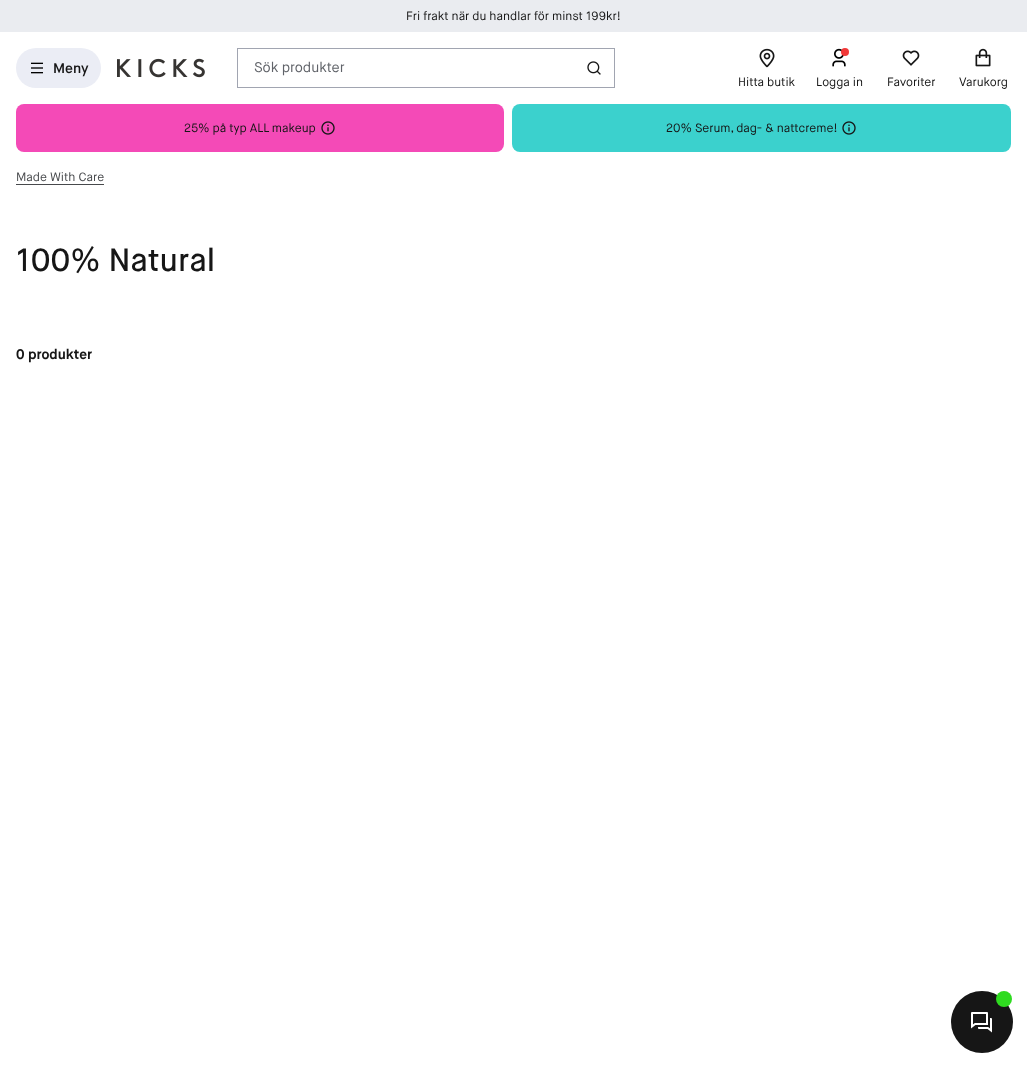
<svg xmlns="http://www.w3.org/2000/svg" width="1027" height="1067">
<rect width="100%" height="100%" fill="#fff"/>
<rect width="1027" height="32" fill="#eaecf0"/>
<text x="406" y="20" style="font-family:Maison Neue;font-size:12px;fill:#161616">Fri frakt när du handlar för minst 199kr!</text>
<rect x="16" y="48" width="85" height="40" rx="20" fill="#ebedf5"/>
<image x="31" y="62" width="12" height="12" href="media/1.png"/>
<text x="53" y="73" style="font-family:Maison Neue;font-size:14px;font-weight:600;fill:#161616">Meny</text>
<image x="117" y="58" width="88" height="20" href="media/2.png"/>
<rect x="237.5" y="48.5" width="377" height="39" fill="none" stroke="#a1a5b1"/>
<text x="254" y="72" style="font-family:Maison Neue;font-size:14px;fill:#606369">Sök produkter</text>
<image x="587" y="61" width="14" height="14" href="media/3.png"/>
<image x="759" y="48" width="16" height="20" href="media/4.png"/>
<text x="738" y="86" style="font-family:Maison Neue;font-size:12px;fill:#161616">Hitta butik</text>
<image x="832" y="48" width="14" height="19" href="media/5.png"/>
<circle cx="845" cy="52" r="4" fill="#f23939"/>
<text x="816" y="86" style="font-family:Maison Neue;font-size:12px;fill:#161616">Logga in</text>
<image x="902" y="50" width="18" height="16" href="media/6.png"/>
<text x="887" y="86" style="font-family:Maison Neue;font-size:12px;fill:#161616">Favoriter</text>
<image x="975" y="48" width="16" height="19" href="media/7.png"/>
<text x="959" y="86" style="font-family:Maison Neue;font-size:12px;fill:#161616">Varukorg</text>
<rect x="16" y="104" width="488" height="48" rx="8" fill="#f44ab7"/>
<text x="184" y="132" style="font-family:Maison Neue;font-size:12px;fill:#161616">25% på typ ALL makeup</text>
<image x="321" y="121" width="14" height="14" href="media/8.png"/>
<rect x="512" y="104" width="499" height="48" rx="8" fill="#3bd1cd"/>
<text x="666" y="132" style="font-family:Maison Neue;font-size:12px;fill:#161616">20% Serum, dag- &amp; nattcreme!</text>
<image x="842" y="121" width="14" height="14" href="media/9.png"/>
<text x="16" y="181" style="font-family:Maison Neue;font-size:12px;fill:#47494c">Made With Care</text>
<rect x="16" y="184" width="88" height="1" fill="#47494c"/>
<text x="16" y="271" style="font-family:Maison Neue;font-size:32px;font-weight:500;fill:#161616">100% Natural</text>
<text x="16" y="359" style="font-family:Maison Neue;font-size:14px;font-weight:bold;fill:#161616">0 produkter</text>
<circle cx="982" cy="1022" r="31" fill="#161616"/>
<circle cx="1004" cy="999" r="8" fill="#2fdb20"/>
<image x="971" y="1012" width="21" height="21" href="media/10.png"/>
</svg>
